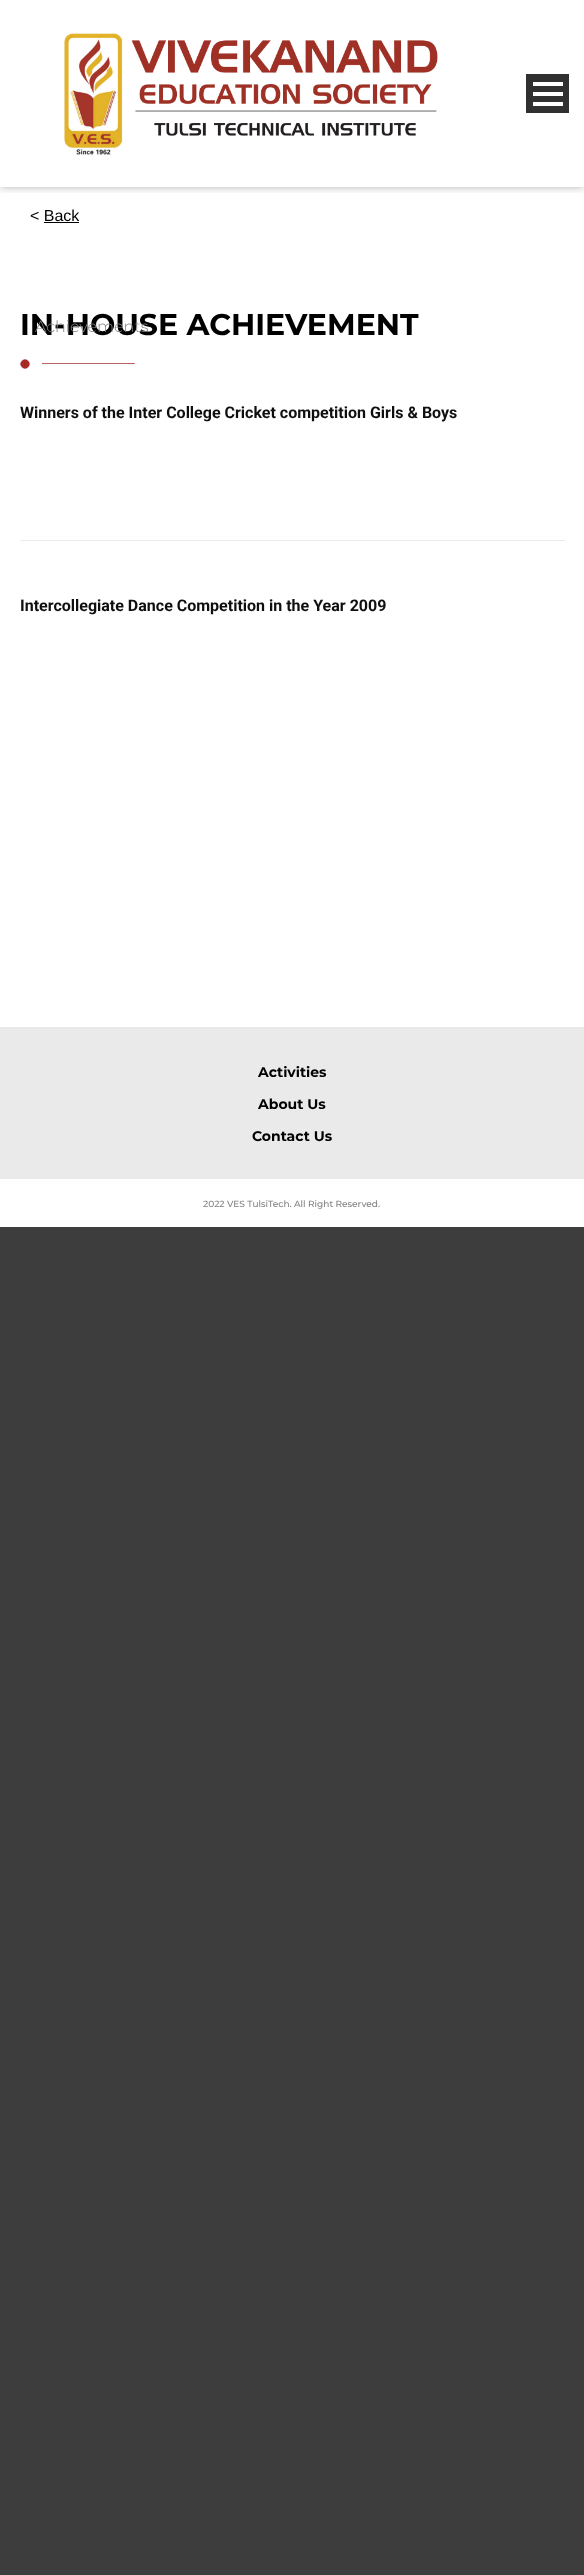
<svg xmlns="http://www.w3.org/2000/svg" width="584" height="2575">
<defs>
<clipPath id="clip1"><rect x="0" y="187" width="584" height="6"/></clipPath>
</defs>
<rect width="100%" height="100%" fill="#3d3d3d"/>
<rect width="584" height="1027" fill="#fff"/>
<text x="30" y="221" style="font-family:Liberation Sans;font-size:16px;fill:#000">&lt; Back</text>
<rect x="44" y="222" width="35" height="1" fill="#000"/>
<text x="20" y="335" style="font-family:Montserrat;font-size:30px;font-weight:bold;fill:#000">IN-HOUSE ACHIEVEMENT</text>
<image x="20" y="359" width="115" height="10" href="media/1.png"/>
<text x="20" y="418" style="font-family:Roboto;font-size:16px;font-weight:bold;fill:#0f0f0f">Winners of the Inter College Cricket competition Girls &amp; Boys</text>
<rect x="20" y="540" width="545" height="1" fill="#ebebeb"/>
<text x="20" y="611" style="font-family:Roboto;font-size:16px;font-weight:bold;fill:#0f0f0f">Intercollegiate Dance Competition in the Year 2009</text>
<g clip-path="url(#clip1)">
<rect width="584" height="187" fill="#0000004d" filter="blur(4px)"/>
</g>
<image x="64" y="33" width="374" height="122" href="media/2.png"/>
<rect x="526" y="74" width="43" height="39" fill="#303030"/>
<rect x="533" y="102" width="30" height="4" fill="#fff"/>
<rect x="533" y="92" width="30" height="4" fill="#fff"/>
<rect x="533" y="82" width="30" height="4" fill="#fff"/>
<text x="35" y="332" style="font-family:Montserrat;font-size:16px;font-weight:300;fill:#828282">Achievements</text>
<rect y="1027" width="584" height="152" fill="#eaeaea"/>
<text x="258" y="1077" style="font-family:Montserrat;font-size:14px;font-weight:bold;fill:#000">Activities</text>
<text x="258" y="1109" style="font-family:Montserrat;font-size:14px;font-weight:bold;fill:#000">About Us</text>
<text x="252" y="1141" style="font-family:Montserrat;font-size:14px;font-weight:bold;fill:#000">Contact Us</text>
<rect y="1179" width="584" height="48" fill="#fff"/>
<text x="203" y="1207" style="font-family:Montserrat;font-size:9px;font-weight:500;fill:#828282">2022 VES TulsiTech. All Right Reserved.</text>
</svg>
